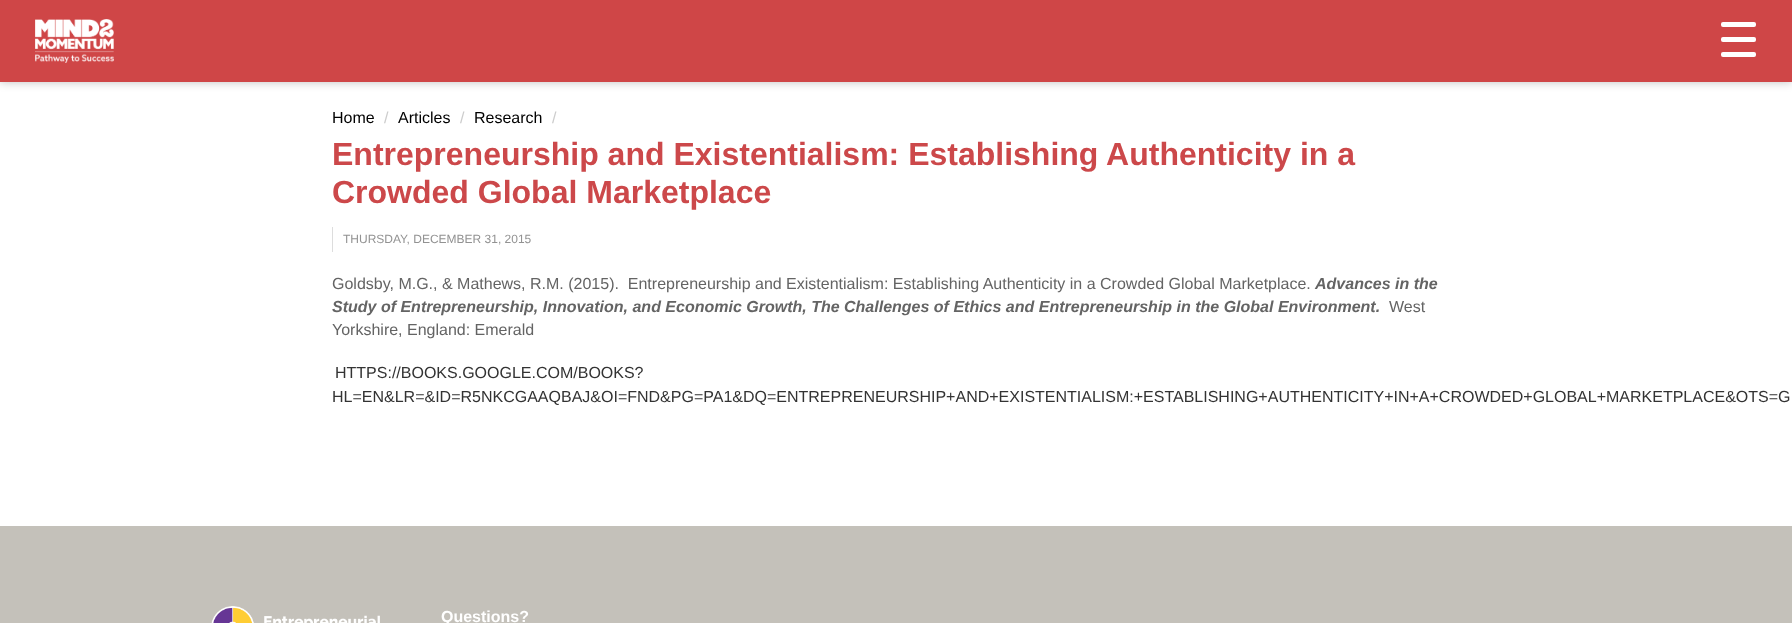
<svg xmlns="http://www.w3.org/2000/svg" width="1792" height="623">
<rect width="100%" height="100%" fill="#fff"/>
<rect width="1792" height="82" fill="#00000040" filter="blur(5px)"/>
<rect width="1792" height="82" fill="#cf4647"/>
<image x="35" y="19" width="79" height="44" href="media/1.png"/>
<rect x="1721" y="22" width="35" height="5" rx="2" fill="#fff"/>
<rect x="1721" y="37" width="35" height="5" rx="2" fill="#fff"/>
<rect x="1721" y="52" width="35" height="5" rx="2" fill="#fff"/>
<text x="332" y="123" style="font-family:Liberation Sans;font-size:16px;fill:#000">Home</text>
<text x="384" y="123" style="font-family:Liberation Sans;font-size:16px;fill:#ccc">/</text>
<text x="398" y="123" style="font-family:Liberation Sans;font-size:16px;fill:#000">Articles</text>
<text x="460" y="123" style="font-family:Liberation Sans;font-size:16px;fill:#ccc">/</text>
<text x="474" y="123" style="font-family:Liberation Sans;font-size:16px;fill:#000">Research</text>
<text x="552" y="123" style="font-family:Liberation Sans;font-size:16px;fill:#ccc">/</text>
<text x="332" y="165" style="font-family:Liberation Sans;font-size:32px;font-weight:bold;fill:#cc484a">Entrepreneurship and Existentialism: Establishing Authenticity in a</text>
<text x="332" y="203" style="font-family:Liberation Sans;font-size:32px;font-weight:bold;fill:#cc484a">Crowded Global Marketplace</text>
<rect x="332" y="227" width="1" height="25" fill="#ddd"/>
<text x="343" y="243" style="font-family:Liberation Sans;font-size:12px;fill:#929292">THURSDAY, DECEMBER 31, 2015</text>
<text x="332" y="289" style="font-family:Liberation Sans;font-size:16px;fill:#646464" xml:space="preserve">Goldsby, M.G., &amp; Mathews, R.M. (2015).  Entrepreneurship and Existentialism: Establishing Authenticity in a Crowded Global Marketplace.</text>
<text x="1315" y="289" style="font-family:Liberation Sans;font-size:16px;font-weight:bold;font-style:italic;fill:#646464">Advances in the</text>
<text x="332" y="312" style="font-family:Liberation Sans;font-size:16px;font-weight:bold;font-style:italic;fill:#646464">Study of Entrepreneurship, Innovation, and Economic Growth, The Challenges of Ethics and Entrepreneurship in the Global Environment.</text>
<text x="1389" y="312" style="font-family:Liberation Sans;font-size:16px;fill:#646464">West</text>
<text x="332" y="335" style="font-family:Liberation Sans;font-size:16px;fill:#646464">Yorkshire, England: Emerald</text>
<text x="335" y="378" style="font-family:Liberation Sans;font-size:16px;fill:#333">HTTPS://BOOKS.GOOGLE.COM/BOOKS?</text>
<text x="332" y="402" style="font-family:Liberation Sans;font-size:16px;fill:#333">HL=EN&amp;LR=&amp;ID=R5NKCGAAQBAJ&amp;OI=FND&amp;PG=PA1&amp;DQ=ENTREPRENEURSHIP+AND+EXISTENTIALISM:+ESTABLISHING+AUTHENTICITY+IN+A+CROWDED+GLOBAL+MARKETPLACE&amp;OTS=G</text>
<rect y="526" width="1792" height="97" fill="#c4c1ba"/>
<image x="211" y="606" width="169" height="17" href="media/2.png"/>
<text x="441" y="622" style="font-family:Liberation Sans;font-size:16px;font-weight:bold;fill:#fff">Questions?</text>
</svg>
